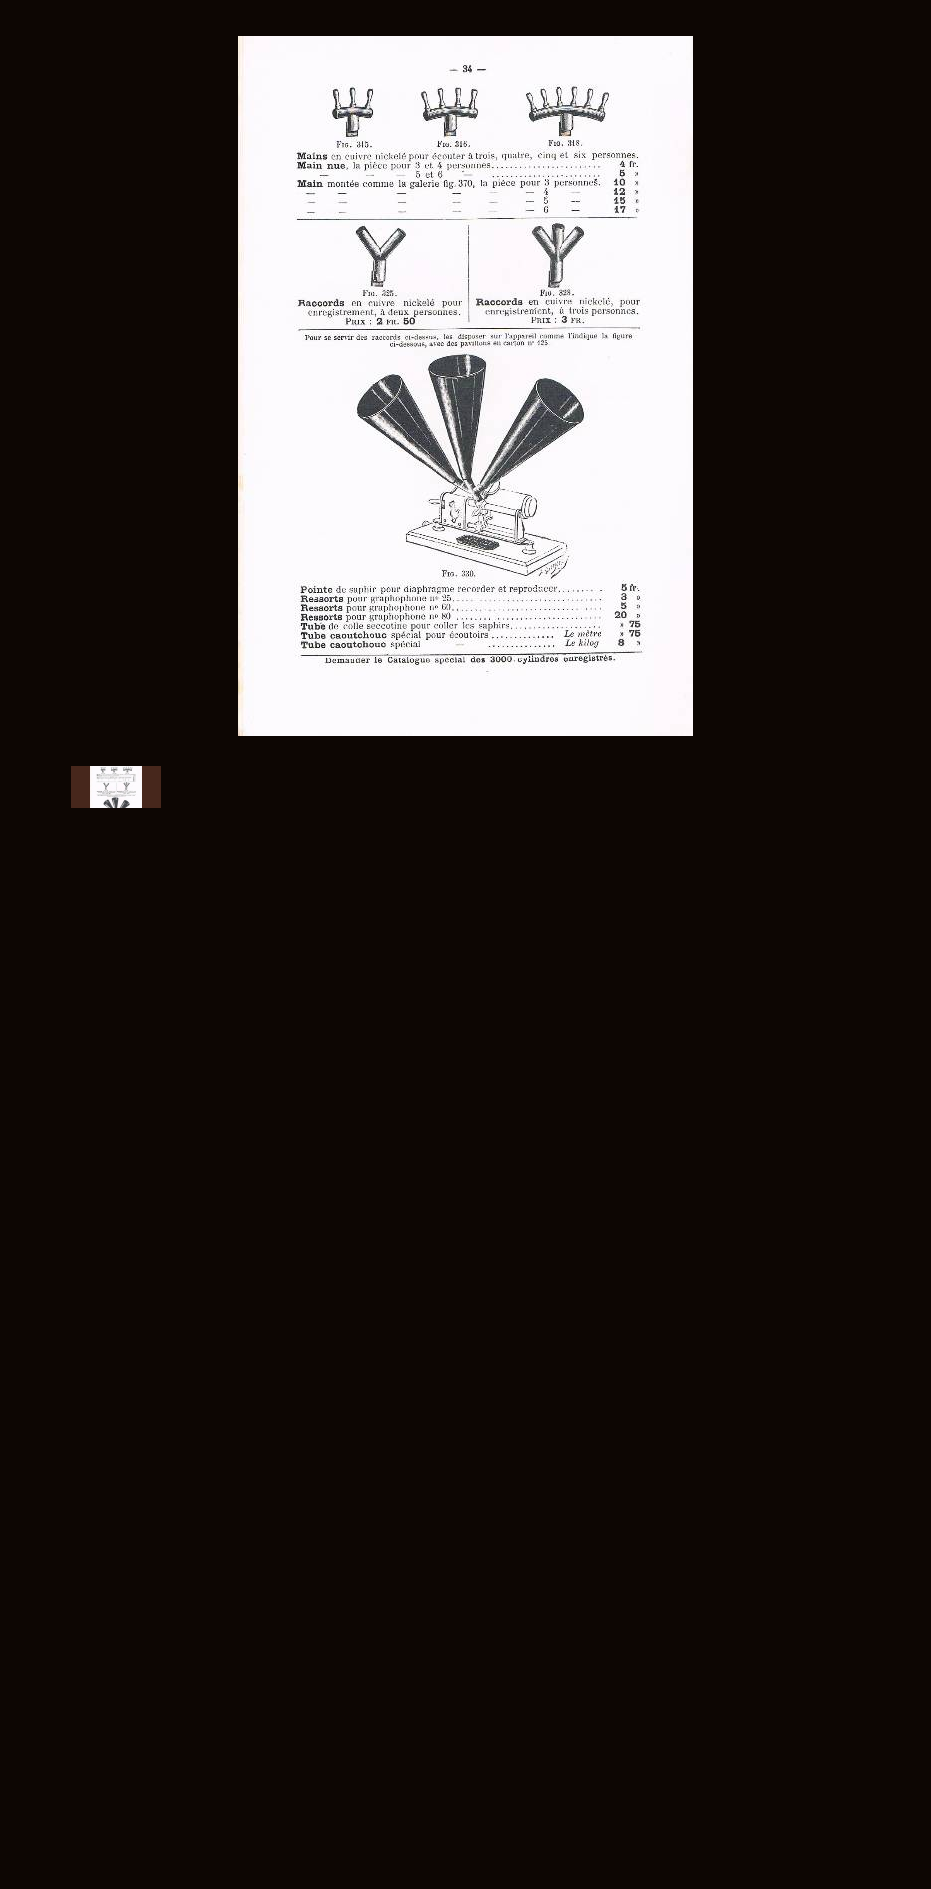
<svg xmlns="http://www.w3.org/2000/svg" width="931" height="1889">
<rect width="100%" height="100%" fill="#0d0603"/>
<image x="238" y="36" width="455" height="700" href="media/1.png"/>
<rect x="71" y="766" width="90" height="42" fill="#47271c"/>
<image x="90" y="766" width="52" height="42" href="media/2.png"/>
</svg>
